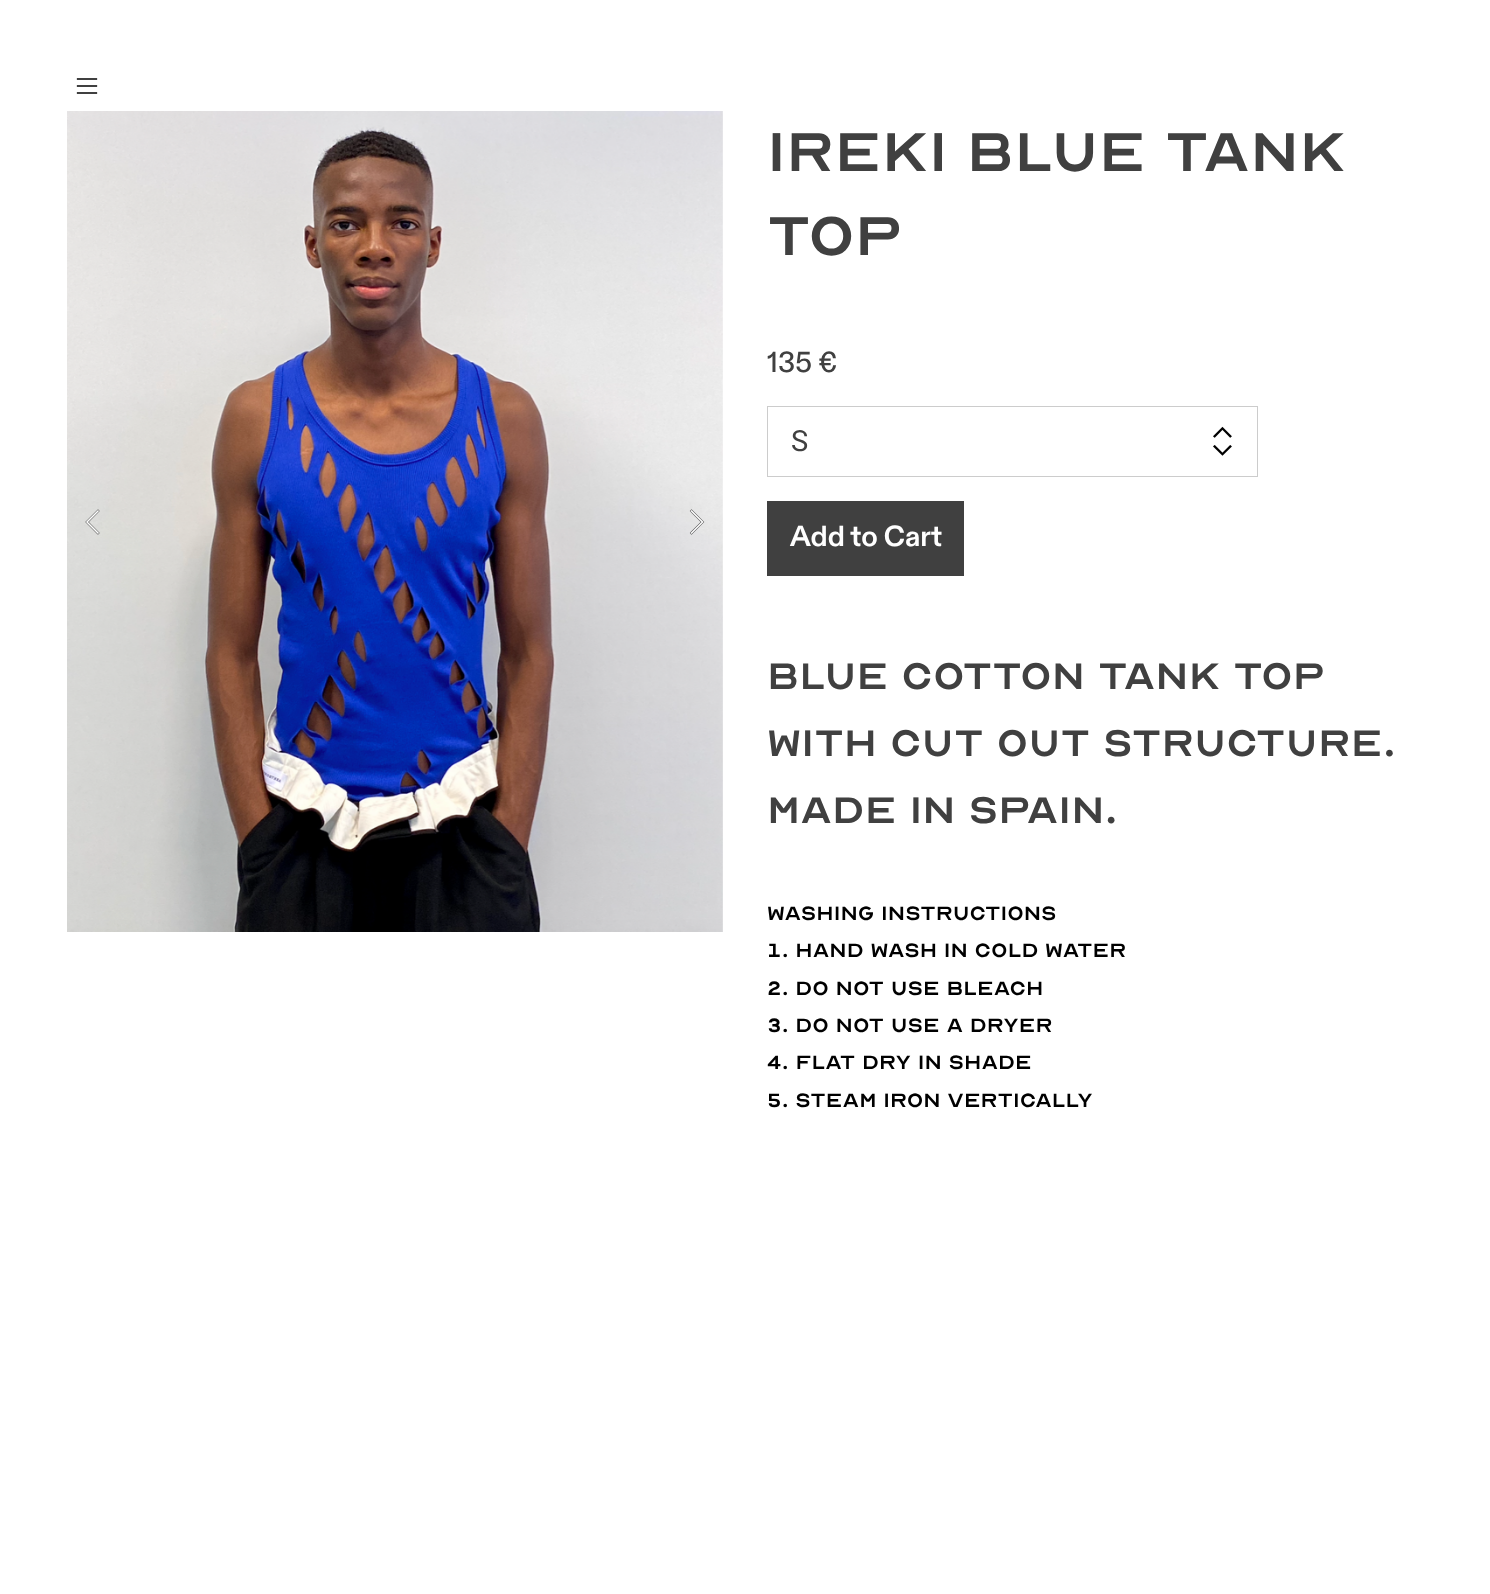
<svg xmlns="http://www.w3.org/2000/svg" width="1490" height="1594">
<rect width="100%" height="100%" fill="#fff"/>
<image x="76" y="78" width="22" height="16" href="media/1.png"/>
<image x="67" y="111" width="656" height="821" href="media/2.png"/>
<path d="M98 533l-11-11l11-11" fill="none" stroke="#00000099" stroke-width="2.5" stroke-linecap="square"/>
<path d="M98 533l-11-11l11-11" fill="none" stroke="#fff" stroke-width="1.5" stroke-linecap="square"/>
<path d="M691.5 533l11-11l-11-11" fill="none" stroke="#00000099" stroke-width="2.5" stroke-linecap="square"/>
<path d="M691.5 533l11-11l-11-11" fill="none" stroke="#fff" stroke-width="1.5" stroke-linecap="square"/>
<text x="767" y="171" style="font-family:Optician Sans;font-size:75.75px;fill:#404040">Ireki Blue Tank</text>
<text x="767" y="255" style="font-family:Optician Sans;font-size:75.75px;fill:#404040">Top</text>
<text x="767" y="372" style="font-family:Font;font-size:29px;font-weight:500;fill:#404040">135 €</text>
<image x="1213" y="426" width="19" height="30" href="media/3.png"/>
<rect x="767.5" y="406.5" width="490" height="70" fill="none" stroke="#ccc"/>
<text x="791" y="451" style="font-family:Roboto;font-size:29px;fill:#404040">S</text>
<rect x="767" y="501" width="197" height="75" fill="#404040"/>
<text x="790" y="546" style="font-family:Font;font-size:29px;font-weight:bold;fill:#fff">Add to Cart</text>
<text x="767" y="689" style="font-family:Optician Sans;font-size:51.25px;fill:#404040">Blue cotton Tank top</text>
<text x="767" y="756" style="font-family:Optician Sans;font-size:51.25px;fill:#404040">with cut out structure.</text>
<text x="767" y="823" style="font-family:Optician Sans;font-size:51.25px;fill:#404040">Made in Spain.</text>
<text x="767" y="920" style="font-family:Optician Sans;font-size:26.75px;fill:#000">Washing instructions</text>
<text x="767" y="957" style="font-family:Optician Sans;font-size:26.75px;fill:#000">1. hand wash in cold water</text>
<text x="767" y="995" style="font-family:Optician Sans;font-size:26.75px;fill:#000">2. Do not use bleach</text>
<text x="767" y="1032" style="font-family:Optician Sans;font-size:26.75px;fill:#000">3. Do not use a dryer</text>
<text x="767" y="1069" style="font-family:Optician Sans;font-size:26.75px;fill:#000">4. Flat dry in shade</text>
<text x="767" y="1107" style="font-family:Optician Sans;font-size:26.75px;fill:#000">5. steam iron vertically</text>
</svg>
